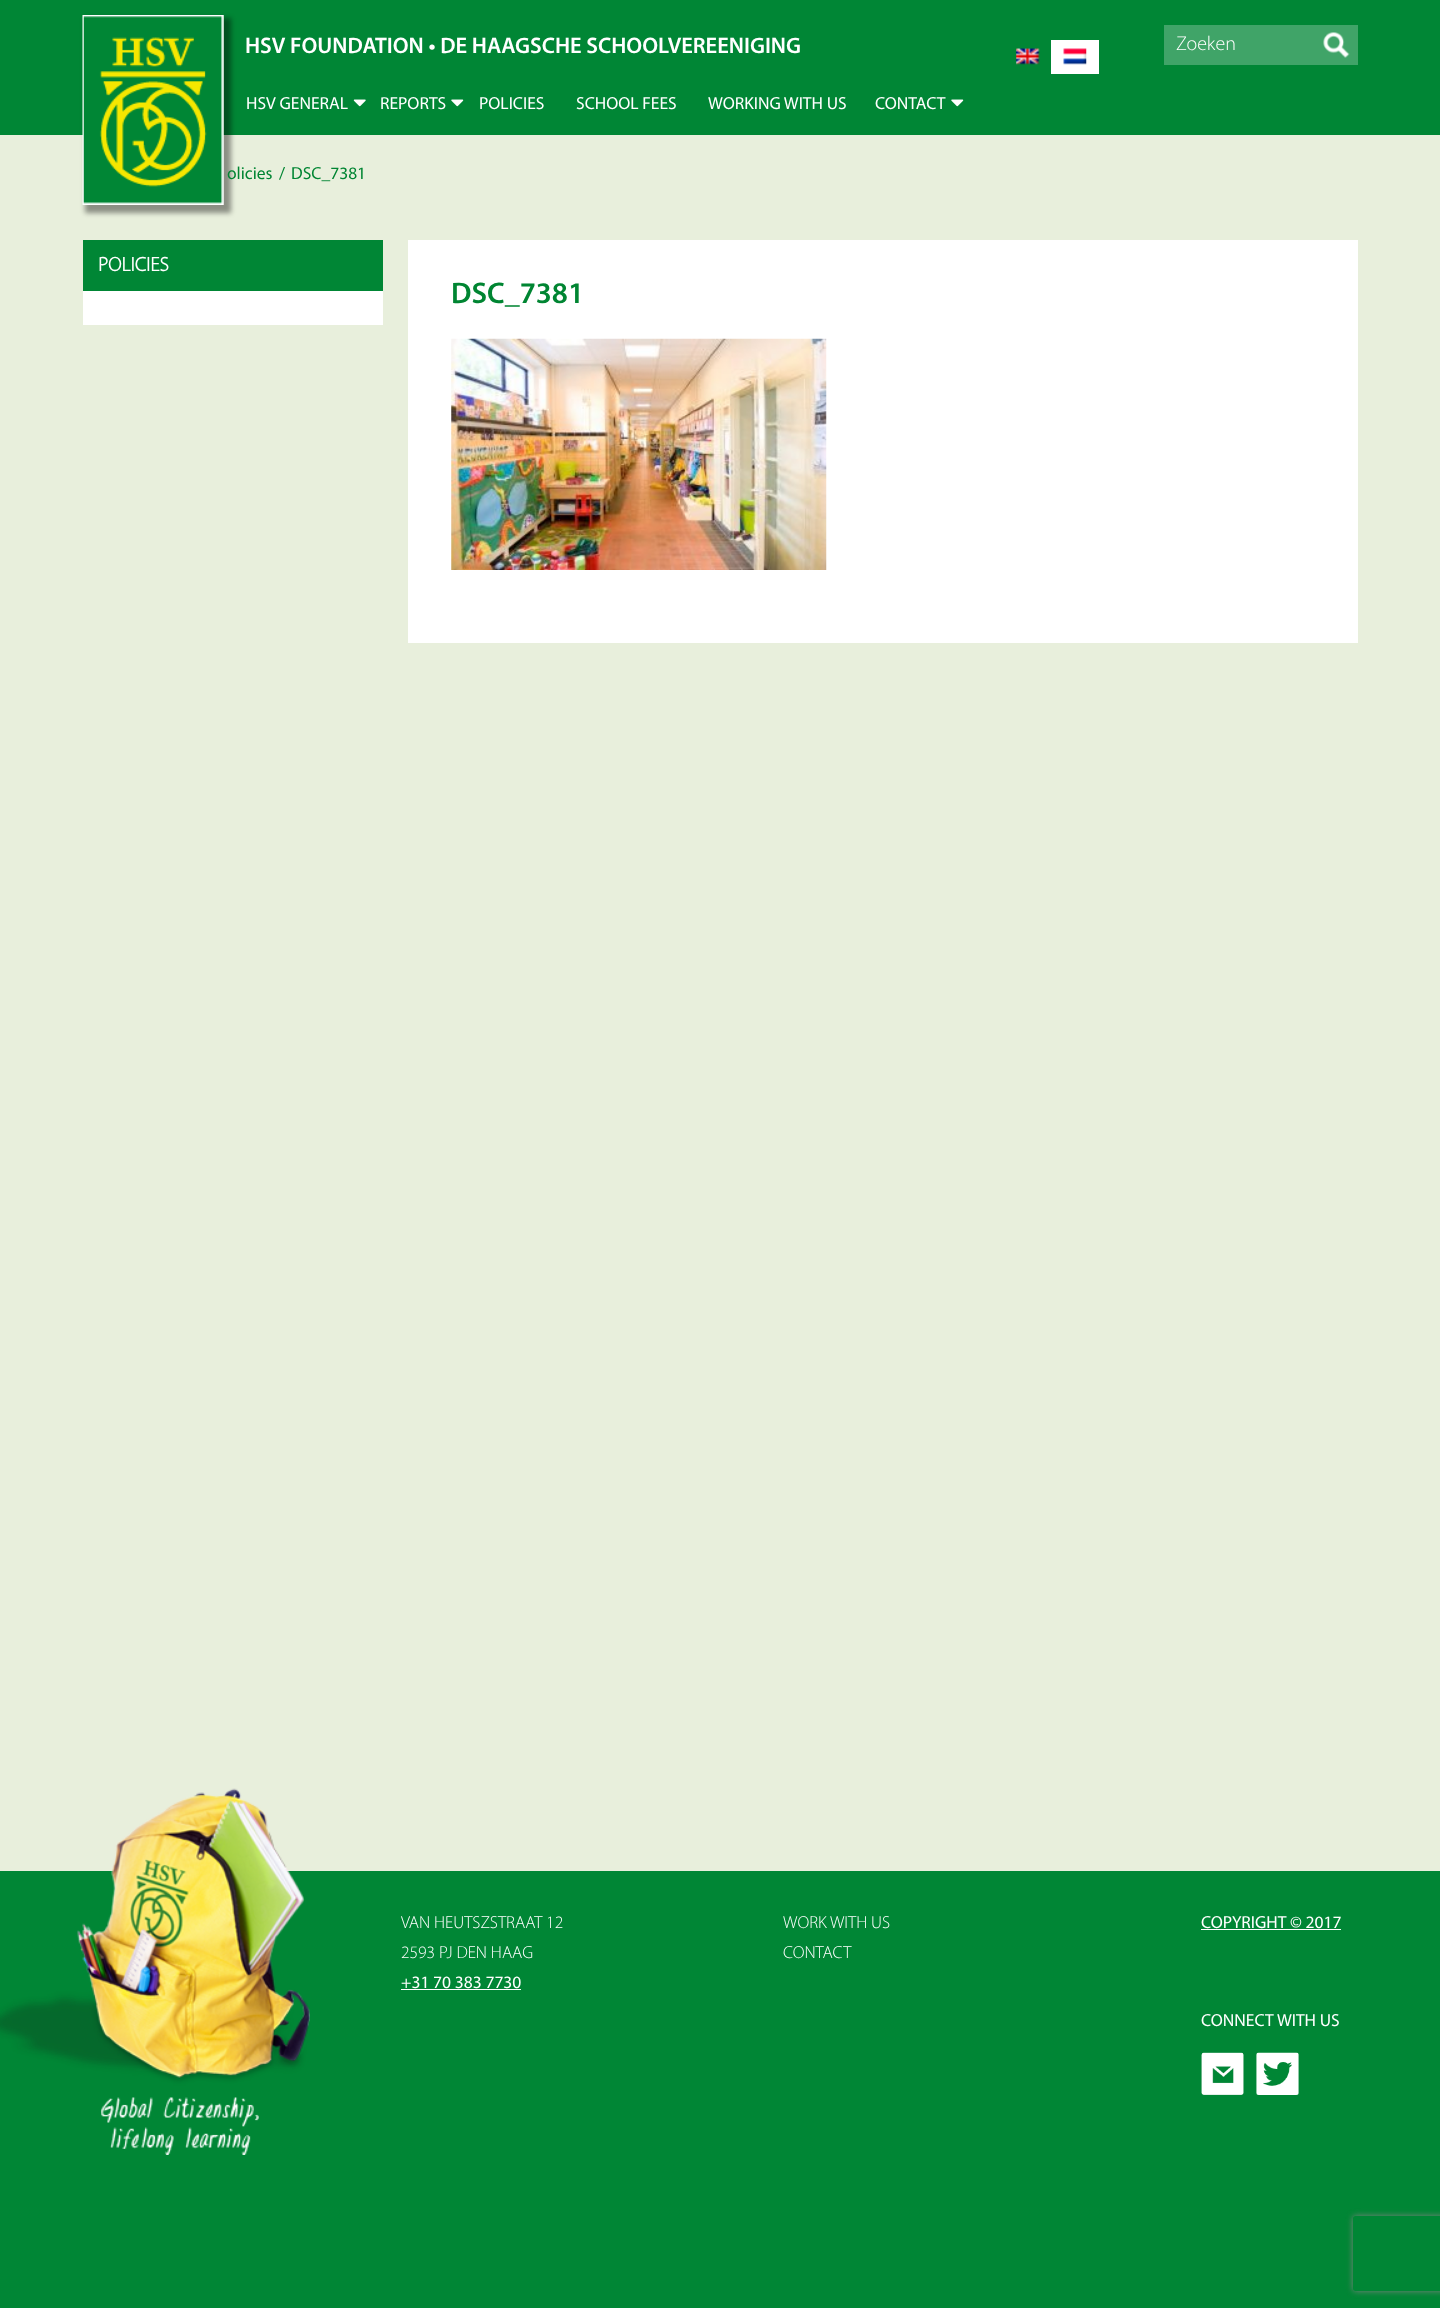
<svg xmlns="http://www.w3.org/2000/svg" width="1440" height="2308">
<defs>
<clipPath id="clip1"><path d="M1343 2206h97v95h-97zm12.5 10h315c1.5 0 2.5 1 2.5 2.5v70c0 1.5-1 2.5-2.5 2.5h-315c-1.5 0-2.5-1-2.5-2.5v-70c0-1.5 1-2.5 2.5-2.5z" clip-rule="evenodd"/></clipPath>
</defs>
<rect width="100%" height="100%" fill="#e8efdc"/>
<rect width="1440" height="135" fill="#008635"/>
<rect x="85" y="18" width="146" height="195" fill="#01010166" filter="blur(2.5px)"/>
<image x="82" y="15" width="142" height="190" href="media/1.png"/>
<text x="245" y="53" style="font-family:Myriad;font-size:22.5px;font-weight:600;fill:#fff">HSV FOUNDATION • DE HAAGSCHE SCHOOLVEREENIGING</text>
<text x="246" y="109" style="font-family:Myriad;font-size:17.5px;fill:#fff">HSV GENERAL</text>
<image x="353" y="99" width="13" height="8" href="media/2.png"/>
<text x="380" y="109" style="font-family:Myriad;font-size:17.5px;fill:#fff">REPORTS</text>
<image x="451" y="99" width="13" height="8" href="media/3.png"/>
<text x="479" y="109" style="font-family:Myriad;font-size:17.5px;fill:#fff">POLICIES</text>
<text x="576" y="109" style="font-family:Myriad;font-size:17.5px;fill:#fff">SCHOOL FEES</text>
<text x="708" y="109" style="font-family:Myriad;font-size:17.5px;fill:#fff">WORKING WITH US</text>
<text x="875" y="109" style="font-family:Myriad;font-size:17.5px;fill:#fff">CONTACT</text>
<image x="951" y="99" width="13" height="8" href="media/3.png"/>
<image x="1016" y="48" width="24" height="17" href="media/4.png"/>
<rect x="1051" y="40" width="48" height="34" fill="#fff"/>
<image x="1063" y="48" width="24" height="17" href="media/5.png"/>
<rect x="1164" y="25" width="194" height="40" fill="#40a468"/>
<text x="1176" y="50" style="font-family:Myriad;font-size:20px;font-weight:300;fill:#fff">Zoeken</text>
<image x="1323" y="32" width="27" height="26" href="media/6.png"/>
<text x="227" y="179" style="font-family:Myriad;font-size:17.5px;fill:#008532">olicies</text>
<text x="279" y="179" style="font-family:Myriad;font-size:17.5px;fill:#008532">/</text>
<text x="291" y="179" style="font-family:Myriad;font-size:17.5px;fill:#008532">DSC_7381</text>
<rect x="83" y="240" width="300" height="51" fill="#008635"/>
<text x="98" y="271" style="font-family:Myriad;font-size:20px;font-weight:bold;fill:#fff">POLICIES</text>
<rect x="83" y="291" width="300" height="34" fill="#fff"/>
<rect x="408" y="240" width="950" height="403" fill="#fff"/>
<text x="451" y="303" style="font-family:Myriad;font-size:30px;font-weight:600;fill:#008532">DSC_7381</text>
<image x="451" y="338" width="376" height="232" href="media/7.png"/>
<rect y="1871" width="1440" height="437" fill="#008635"/>
<image x="0" y="1788" width="310" height="367" href="media/8.png"/>
<text x="401" y="1928" style="font-family:Myriad;font-size:17.5px;font-weight:300;fill:#fff">VAN HEUTSZSTRAAT 12</text>
<text x="401" y="1958" style="font-family:Myriad;font-size:17.5px;font-weight:300;fill:#fff">2593 PJ DEN HAAG</text>
<text x="401" y="1988" style="font-family:Myriad;font-size:17.5px;fill:#fff">+31 70 383 7730</text>
<rect x="401" y="1989" width="120" height="1" fill="#fff"/>
<text x="783" y="1928" style="font-family:Myriad;font-size:17.5px;font-weight:300;fill:#fff">WORK WITH US</text>
<text x="783" y="1958" style="font-family:Myriad;font-size:17.5px;font-weight:300;fill:#fff">CONTACT</text>
<text x="1201" y="1928" style="font-family:Myriad;font-size:17.5px;fill:#fff">COPYRIGHT © 2017</text>
<rect x="1201" y="1929" width="140" height="1" fill="#fff"/>
<text x="1201" y="2026" style="font-family:Myriad;font-size:17.5px;fill:#fff">CONNECT WITH US</text>
<image x="1201" y="2052" width="43" height="43" href="media/9.png"/>
<image x="1256" y="2052" width="43" height="43" href="media/10.png"/>
<g clip-path="url(#clip1)">
<rect x="1353" y="2216" width="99" height="75" rx="2.5" fill="#808080" filter="blur(3px)"/>
</g>
</svg>
